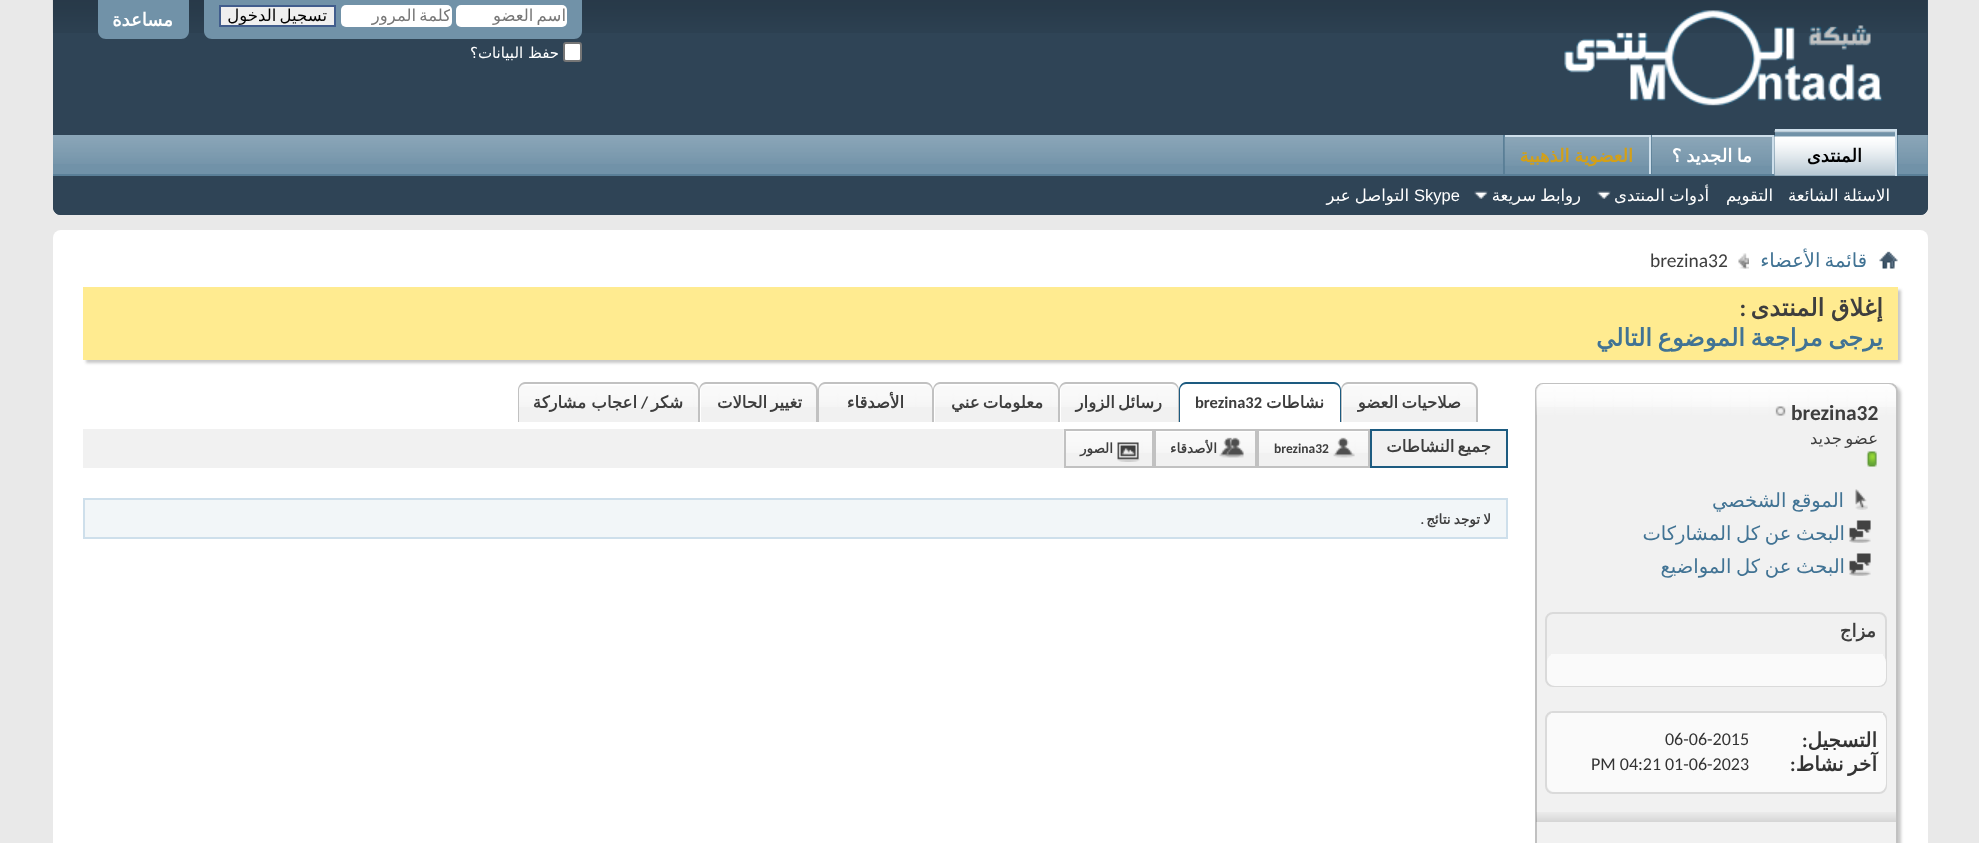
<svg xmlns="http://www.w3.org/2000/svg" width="1979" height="843">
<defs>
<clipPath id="clip1"><rect x="458" y="6" width="108" height="20"/></clipPath>
<clipPath id="clip2"><rect x="342" y="6" width="108" height="20"/></clipPath>
</defs>
<rect width="100%" height="100%" fill="#e9e9e9"/>
<path d="M53 0h1875v207c0 4.5-3.5 8-8 8h-1859c-4.5 0-8-3.5-8-8z" fill="#2f4456"/>
<image x="52" y="0" width="1875" height="33" href="media/1.png"/>
<image x="1564" y="10" width="319" height="96" href="media/2.png"/>
<path d="M204 0h378v31c0 4.5-3.5 8-8 8h-362c-4.5 0-8-3.5-8-8z" fill="#7192a8"/>
<rect x="456" y="5" width="111" height="22" rx="5" fill="#fff"/>
<g clip-path="url(#clip1)">
<text x="566" y="21" word-spacing="-2" style="font-family:DejaVu Sans;font-size:16.5px;direction:rtl;fill:#777">اسم العضو</text>
</g>
<rect x="341" y="5" width="111" height="22" rx="5" fill="#fff"/>
<g clip-path="url(#clip2)">
<text x="451" y="21" word-spacing="-2" style="font-family:DejaVu Sans;font-size:16.5px;direction:rtl;fill:#777">كلمة المرور</text>
</g>
<rect x="220" y="6" width="115" height="20" fill="#efefef" stroke="#415d8d" stroke-width="2"/>
<text x="327" y="21" word-spacing="-2" style="font-family:DejaVu Sans;font-size:16.5px;direction:rtl;fill:#000">تسجيل الدخول</text>
<rect x="564" y="43" width="17" height="18" rx="2" fill="#fff" stroke="#767676" stroke-width="2"/>
<text x="559" y="58" style="font-family:DejaVu Sans;font-size:15px;direction:rtl;fill:#fff">حفظ البيانات؟</text>
<path d="M98 0h91v31c0 4.5-3.5 8-8 8h-75c-4.5 0-8-3.5-8-8z" fill="#7192a8"/>
<text x="173" y="26" style="font-family:DejaVu Sans;font-size:18px;font-weight:bold;direction:rtl;fill:#fff">مساعدة</text>
<path d="M53 135h1875v72c0 4.5-3.5 8-8 8h-1859c-4.5 0-8-3.5-8-8z" fill="#2f4456"/>
<rect x="53" y="135" width="1875" height="39" fill="#7192a8"/>
<image x="53" y="135" width="1875" height="29" href="media/3.png"/>
<rect x="1897" y="135" width="1" height="39" fill="#5a7f97"/>
<rect x="1774" y="135" width="1" height="39" fill="#5a7f97"/>
<rect x="1651" y="135" width="1" height="41" fill="#5a7f97"/>
<rect x="1652" y="137" width="120" height="27" fill="#7192a8"/>
<image x="1651" y="136" width="121" height="30" href="media/7.png"/>
<rect x="1652" y="135" width="121" height="2" fill="#cedfeb"/>
<rect x="1772" y="135" width="2" height="41" fill="#cedfeb"/>
<rect x="1503" y="135" width="2" height="41" fill="#5a7f97"/>
<rect x="1505" y="137" width="144" height="27" fill="#7192a8"/>
<image x="1504" y="136" width="145" height="30" href="media/8.png"/>
<rect x="1505" y="135" width="145" height="2" fill="#cedfeb"/>
<rect x="1649" y="135" width="2" height="41" fill="#cedfeb"/>
<rect x="53" y="174" width="1875" height="2" fill="#5a7f97"/>
<rect x="1775" y="131" width="120" height="45" fill="#7192a8"/>
<image x="1774" y="130" width="121" height="46" href="media/4.png"/>
<rect x="1775" y="129" width="121" height="2" fill="#cedfeb"/>
<rect x="1895" y="129" width="2" height="47" fill="#cedfeb"/>
<text x="1862" y="162" style="font-family:DejaVu Sans;font-size:18px;font-weight:bold;direction:rtl;fill:#000">المنتدى</text>
<text x="1890" y="201" word-spacing="-1" style="font-family:DejaVu Sans;font-size:16.5px;direction:rtl;fill:#fff">الاسئلة الشائعة</text>
<text x="1773" y="201" style="font-family:DejaVu Sans;font-size:16.5px;direction:rtl;fill:#fff">التقويم</text>
<text x="1709" y="201" word-spacing="-1" style="font-family:DejaVu Sans;font-size:16.5px;direction:rtl;fill:#fff">أدوات المنتدى</text>
<image x="1597" y="191" width="14" height="8" href="media/5.png"/>
<text x="1581" y="201" word-spacing="-1" style="font-family:DejaVu Sans;font-size:16.5px;direction:rtl;fill:#fff">روابط سريعة</text>
<image x="1474" y="191" width="14" height="8" href="media/6.png"/>
<text x="1414" y="201" style="font-family:Liberation Sans;font-size:16.5px;fill:#fff">Skype</text>
<text x="1409" y="201" word-spacing="-1" style="font-family:DejaVu Sans;font-size:16.5px;direction:rtl;fill:#fff">التواصل عبر</text>
<text x="1752" y="162" word-spacing="-1" style="font-family:DejaVu Sans;font-size:18px;font-weight:bold;direction:rtl;fill:#fff">ما الجديد ؟</text>
<text x="1633" y="162" word-spacing="-1" style="font-family:DejaVu Sans;font-size:18px;font-weight:bold;direction:rtl;fill:#d4a017">العضوية الذهبية</text>
<rect x="53" y="230" width="1875" height="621" rx="8" fill="#fff"/>
<image x="1879" y="251" width="19" height="18" href="media/9.png"/>
<image x="1738" y="253" width="11" height="16" href="media/10.png"/>
<text x="1867" y="267" word-spacing="-2" style="font-family:DejaVu Sans;font-size:19.5px;direction:rtl;fill:#417394">قائمة الأعضاء</text>
<text x="1650" y="267" style="font-family:Carlito;font-size:19.5px;fill:#3e3e3e">brezina32</text>
<rect x="86" y="290" width="1815" height="73" fill="#c8c8c8" filter="blur(1.5px)"/>
<rect x="83" y="287" width="1815" height="73" fill="#ffeb90"/>
<text x="1883" y="316" word-spacing="-1" style="font-family:DejaVu Sans;font-size:24px;font-weight:bold;direction:rtl;fill:#3e3e3e">إغلاق المنتدى</text>
<text x="1746" y="316" style="font-family:Carlito;font-size:24px;font-weight:bold;direction:rtl;fill:#3e3e3e">:</text>
<text x="1883" y="346" word-spacing="-2" style="font-family:DejaVu Sans;font-size:24px;font-weight:bold;direction:rtl;fill:#417394">يرجى مراجعة الموضوع التالي</text>
<rect x="1538" y="386" width="363" height="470" rx="8" fill="#c8c8c8" filter="blur(1.5px)"/>
<rect x="1535" y="383" width="363" height="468" rx="8" fill="#f1f1f1"/>
<image x="1535" y="384" width="362" height="23" href="media/11.png"/>
<rect x="1536" y="384" width="361" height="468" rx="7" fill="none" stroke="#c1c1c1" stroke-width="2"/>
<image x="1536" y="384" width="360" height="31" href="media/12.png"/>
<text x="1791" y="420" style="font-family:Carlito;font-size:21.5px;font-weight:bold;fill:#3e3e3e">brezina32</text>
<image x="1775" y="406" width="11" height="10" href="media/13.png"/>
<text x="1878" y="444" word-spacing="-2" style="font-family:DejaVu Sans;font-size:16.5px;direction:rtl;fill:#3e3e3e">عضو جديد</text>
<image x="1866" y="451" width="11" height="16" href="media/14.png"/>
<image x="1855" y="489" width="13" height="21" href="media/15.png"/>
<text x="1844" y="507" word-spacing="-1" style="font-family:DejaVu Sans;font-size:19.5px;direction:rtl;fill:#417394">الموقع الشخصي</text>
<image x="1849" y="520" width="22" height="23" href="media/16.png"/>
<text x="1845" y="540" word-spacing="-1.5" style="font-family:DejaVu Sans;font-size:19.5px;direction:rtl;fill:#417394">البحث عن كل المشاركات</text>
<image x="1849" y="553" width="22" height="23" href="media/16.png"/>
<text x="1845" y="573" word-spacing="-1.5" style="font-family:DejaVu Sans;font-size:19.5px;direction:rtl;fill:#417394">البحث عن كل المواضيع</text>
<rect x="1546" y="613" width="340" height="73" rx="7" fill="none" stroke="#dadada" stroke-width="2"/>
<text x="1876" y="637" style="font-family:DejaVu Sans;font-size:18px;font-weight:bold;direction:rtl;fill:#3e3e3e">مزاج</text>
<rect x="1547" y="654" width="339" height="32" rx="8" fill="#fafafa"/>
<rect x="1551" y="654" width="332" height="2" fill="#fafafa"/>
<rect x="1546" y="712" width="340" height="81" rx="7" fill="none" stroke="#dadada" stroke-width="2"/>
<rect x="1547" y="713" width="339" height="79" rx="8" fill="#fafafa"/>
<rect x="1551" y="713" width="332" height="2" fill="#fafafa"/>
<text x="1877" y="747" style="font-family:DejaVu Sans;font-size:20px;font-weight:bold;direction:rtl;fill:#333">التسجيل</text>
<text x="1802" y="747" style="font-family:Carlito;font-size:20px;font-weight:bold;fill:#333">:</text>
<text x="1665" y="745" style="font-family:Carlito;font-size:18px;fill:#333">06-06-2015</text>
<text x="1877" y="771" word-spacing="-2" style="font-family:DejaVu Sans;font-size:20px;font-weight:bold;direction:rtl;fill:#333">آخر نشاط</text>
<text x="1790" y="771" style="font-family:Carlito;font-size:20px;font-weight:bold;fill:#333">:</text>
<text x="1665" y="770" style="font-family:Carlito;font-size:18px;fill:#333">01-06-2023</text>
<text x="1591" y="770" style="font-family:Carlito;font-size:18px;fill:#333">PM 04:21</text>
<image x="1536" y="812" width="360" height="10" href="media/17.png"/>
<path d="M1349 384h121c3.5 0 6 2.5 6 6v32h-133v-32c0-3.5 2.5-6 6-6z" fill="#f1f1f1"/>
<image x="1343" y="384" width="133" height="23" href="media/18.png"/>
<path d="M1348 382h122c4 0 8 4 8 8v32h-137v-32c0-4 3-8 7-8zm0 2h122c3 0 6 3 6 6v32h-134v-32c0-3 3-6 6-6z" fill="#c1c1c1" fill-rule="evenodd"/>
<text x="1461" y="408" word-spacing="-2" style="font-family:DejaVu Sans;font-size:16.5px;font-weight:bold;direction:rtl;fill:#3e3e3e">صلاحيات العضو</text>
<path d="M1186 382h148c4 0 7 4 7 8v32h-162v-32c0-4 3-8 7-8zm0 2h148c3 0 6 3 6 6v32h-160v-32c0-3 3-6 6-6z" fill="#1d5b80" fill-rule="evenodd"/>
<text x="1324" y="408" style="font-family:DejaVu Sans;font-size:16.5px;font-weight:bold;direction:rtl;fill:#3e3e3e">نشاطات</text>
<text x="1195" y="408" style="font-family:Carlito;font-size:16.5px;font-weight:bold;fill:#3e3e3e">brezina32</text>
<path d="M1067 384h105c3.5 0 6 2.5 6 6v32h-117v-32c0-3.5 2.5-6 6-6z" fill="#f1f1f1"/>
<image x="1061" y="384" width="117" height="23" href="media/19.png"/>
<path d="M1066 382h106c4 0 7 4 7 8v32h-120v-32c0-4 3-8 7-8zm0 2h106c3 0 6 3 6 6v32h-118v-32c0-3 3-6 6-6z" fill="#c1c1c1" fill-rule="evenodd"/>
<text x="1162" y="408" word-spacing="-2" style="font-family:DejaVu Sans;font-size:16.5px;font-weight:bold;direction:rtl;fill:#3e3e3e">رسائل الزوار</text>
<path d="M941 384h111c3.5 0 6 2.5 6 6v32h-123v-32c0-3.5 2.5-6 6-6z" fill="#f1f1f1"/>
<image x="935" y="384" width="123" height="23" href="media/20.png"/>
<path d="M940 382h112c4 0 7 4 7 8v32h-126v-32c0-4 3-8 7-8zm0 2h112c3 0 6 3 6 6v32h-124v-32c0-3 3-6 6-6z" fill="#c1c1c1" fill-rule="evenodd"/>
<text x="1043" y="408" word-spacing="-2" style="font-family:DejaVu Sans;font-size:16.5px;font-weight:bold;direction:rtl;fill:#3e3e3e">معلومات عني</text>
<path d="M825 384h101c3.5 0 6 2.5 6 6v32h-113v-32c0-3.5 2.5-6 6-6z" fill="#f1f1f1"/>
<image x="819" y="384" width="113" height="23" href="media/21.png"/>
<path d="M825 382h101c4 0 7 4 7 8v32h-115v-32c0-4 3-8 7-8zm0 2h101c3 0 6 3 6 6v32h-113v-32c0-3 3-6 6-6z" fill="#c1c1c1" fill-rule="evenodd"/>
<text x="904" y="408" style="font-family:DejaVu Sans;font-size:16.5px;font-weight:bold;direction:rtl;fill:#3e3e3e">الأصدقاء</text>
<path d="M707 384h103c3.5 0 6 2.5 6 6v32h-115v-32c0-3.5 2.5-6 6-6z" fill="#f1f1f1"/>
<image x="701" y="384" width="115" height="23" href="media/22.png"/>
<path d="M706 382h104c4 0 8 4 8 8v32h-119v-32c0-4 3-8 7-8zm0 2h104c3 0 6 3 6 6v32h-116v-32c0-3 3-6 6-6z" fill="#c1c1c1" fill-rule="evenodd"/>
<text x="802" y="408" word-spacing="-2" style="font-family:DejaVu Sans;font-size:16.5px;font-weight:bold;direction:rtl;fill:#3e3e3e">تغيير الحالات</text>
<path d="M525 384h167c3.5 0 6 2.5 6 6v32h-179v-32c0-3.5 2.5-6 6-6z" fill="#f1f1f1"/>
<image x="519" y="384" width="179" height="23" href="media/23.png"/>
<path d="M525 382h167c4 0 7 4 7 8v32h-181v-32c0-4 3-8 7-8zm0 2h167c3 0 6 3 6 6v32h-179v-32c0-3 3-6 6-6z" fill="#c1c1c1" fill-rule="evenodd"/>
<text x="683" y="408" style="font-family:DejaVu Sans;font-size:16.5px;font-weight:bold;direction:rtl;fill:#3e3e3e">شكر</text>
<text x="648" y="408" style="font-family:Carlito;font-size:16.5px;font-weight:bold;direction:rtl;fill:#3e3e3e">/</text>
<text x="637" y="408" style="font-family:DejaVu Sans;font-size:16.5px;font-weight:bold;direction:rtl;fill:#3e3e3e">اعجاب مشاركة</text>
<rect x="83" y="429" width="1423" height="39" fill="#f1f1f1"/>
<rect x="1371" y="430" width="136" height="37" fill="none" stroke="#1d5b80" stroke-width="2"/>
<text x="1491" y="452" word-spacing="-2" style="font-family:DejaVu Sans;font-size:16.5px;font-weight:bold;direction:rtl;fill:#3e3e3e">جميع النشاطات</text>
<image x="1259" y="431" width="109" height="22" href="media/24.png"/>
<rect x="1258" y="430" width="111" height="37" fill="none" stroke="#c1c1c1" stroke-width="2"/>
<image x="1333" y="437" width="22" height="21" href="media/25.png"/>
<text x="1274" y="453" style="font-family:Carlito;font-size:13.5px;font-weight:bold;fill:#3e3e3e">brezina32</text>
<image x="1156" y="431" width="99" height="22" href="media/26.png"/>
<rect x="1155" y="430" width="101" height="37" fill="none" stroke="#c1c1c1" stroke-width="2"/>
<image x="1219" y="437" width="25" height="21" href="media/27.png"/>
<text x="1217" y="453" style="font-family:DejaVu Sans;font-size:13.5px;font-weight:bold;direction:rtl;fill:#3e3e3e">الأصدقاء</text>
<image x="1063" y="430" width="89" height="23" href="media/28.png"/>
<rect x="1065" y="430" width="88" height="37" fill="none" stroke="#c1c1c1" stroke-width="2"/>
<image x="1117" y="442" width="23" height="20" href="media/29.png"/>
<text x="1113" y="453" style="font-family:DejaVu Sans;font-size:13.5px;font-weight:bold;direction:rtl;fill:#3e3e3e">الصور</text>
<rect x="84" y="499" width="1423" height="39" fill="#f2f6f8" stroke="#cedfeb" stroke-width="2"/>
<text x="1491" y="524" word-spacing="-1" style="font-family:DejaVu Sans;font-size:13.5px;font-weight:bold;direction:rtl;fill:#3e3e3e">لا توجد نتائج</text>
<text x="1424" y="524" style="font-family:Carlito;font-size:13.5px;font-weight:bold;direction:rtl;fill:#3e3e3e">.</text>
</svg>
